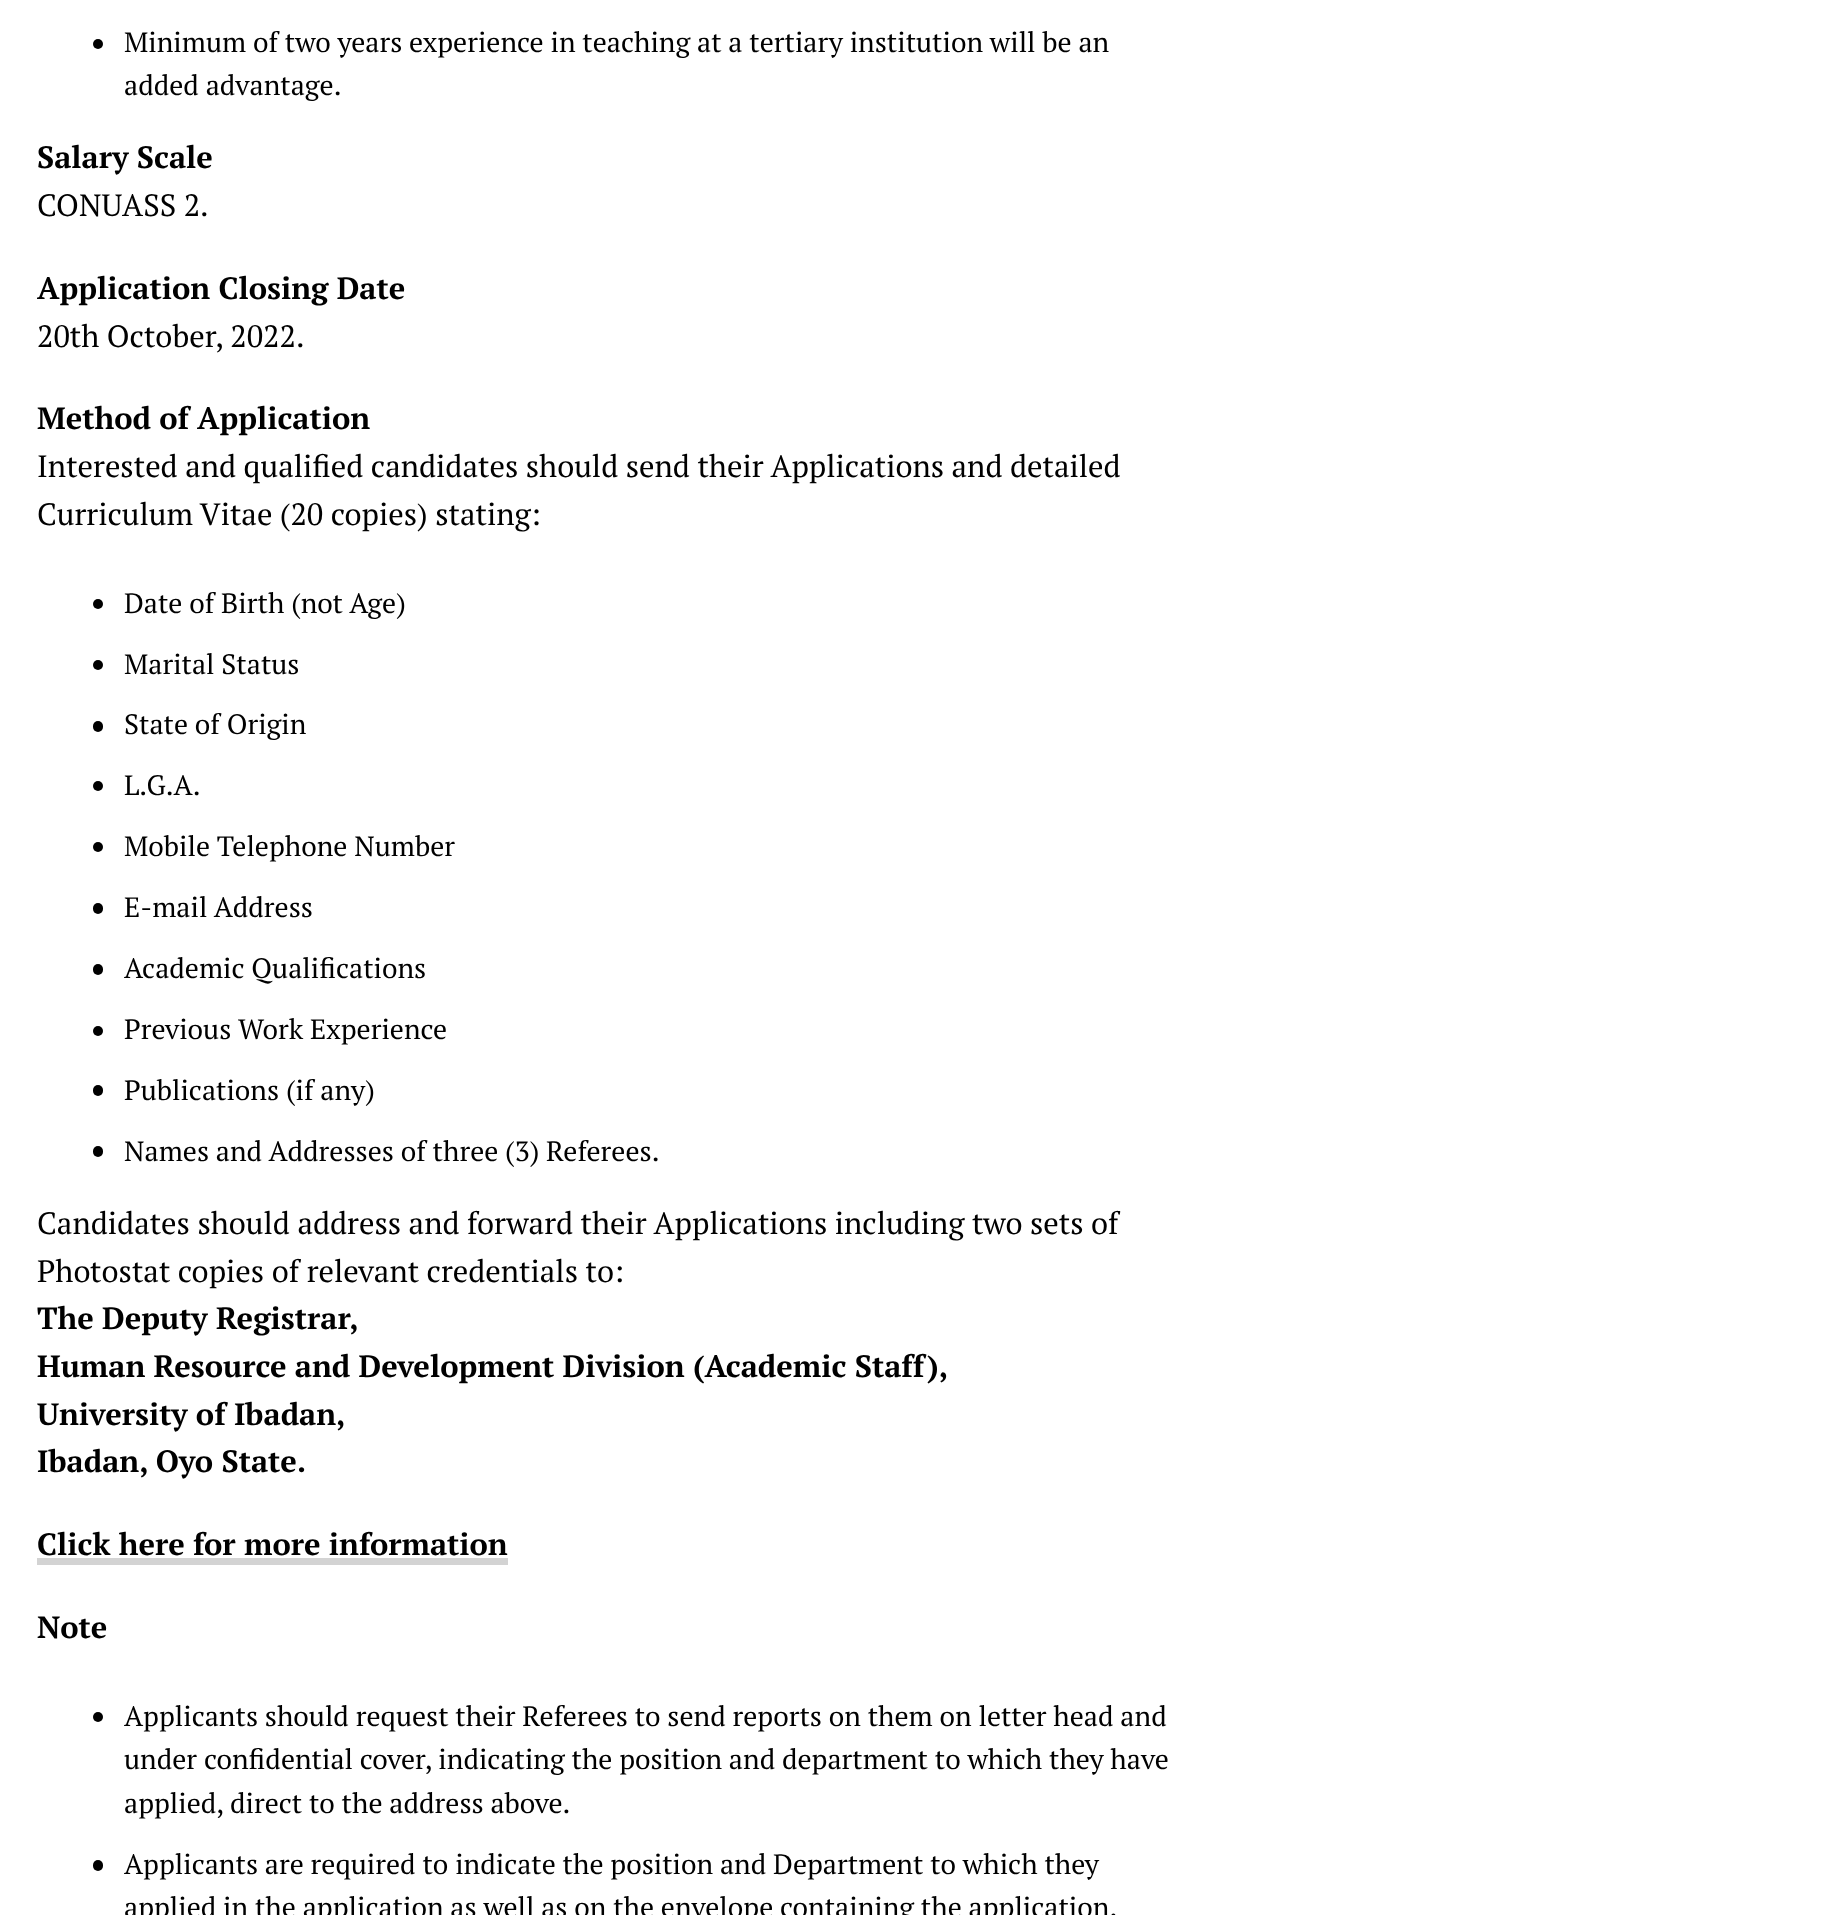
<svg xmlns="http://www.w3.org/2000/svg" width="1846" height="1915">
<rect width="100%" height="100%" fill="#fff"/>
<circle cx="98" cy="44" r="5" fill="#000"/>
<text x="124" y="52" style="font-family:PT Serif;font-size:28px;fill:#000">Minimum of two years experience in teaching at a tertiary institution will be an</text>
<text x="124" y="95" style="font-family:PT Serif;font-size:28px;fill:#000">added advantage.</text>
<text x="37" y="168" style="font-family:PT Serif;font-size:30.8px;font-weight:bold;fill:#000">Salary Scale</text>
<text x="37" y="216" style="font-family:PT Serif;font-size:30.8px;fill:#000">CONUASS 2.</text>
<text x="37" y="299" style="font-family:PT Serif;font-size:30.8px;font-weight:bold;fill:#000">Application Closing Date</text>
<text x="37" y="347" style="font-family:PT Serif;font-size:30.8px;fill:#000">20th October, 2022.</text>
<text x="37" y="429" style="font-family:PT Serif;font-size:30.8px;font-weight:bold;fill:#000">Method of Application</text>
<text x="37" y="477" style="font-family:PT Serif;font-size:30.8px;fill:#000">Interested and qualified candidates should send their Applications and detailed</text>
<text x="37" y="525" style="font-family:PT Serif;font-size:30.8px;fill:#000">Curriculum Vitae (20 copies) stating:</text>
<circle cx="98" cy="604" r="5" fill="#000"/>
<text x="124" y="613" style="font-family:PT Serif;font-size:28px;fill:#000">Date of Birth (not Age)</text>
<circle cx="98" cy="665" r="5" fill="#000"/>
<text x="124" y="674" style="font-family:PT Serif;font-size:28px;fill:#000">Marital Status</text>
<rect x="93" y="721" width="10" height="11" rx="5" fill="#000"/>
<text x="124" y="734" style="font-family:PT Serif;font-size:28px;fill:#000">State of Origin</text>
<circle cx="98" cy="786" r="5" fill="#000"/>
<text x="124" y="795" style="font-family:PT Serif;font-size:28px;fill:#000">L.G.A.</text>
<circle cx="98" cy="847" r="5" fill="#000"/>
<text x="124" y="856" style="font-family:PT Serif;font-size:28px;fill:#000">Mobile Telephone Number</text>
<rect x="93" y="903" width="10" height="11" rx="5" fill="#000"/>
<text x="124" y="917" style="font-family:PT Serif;font-size:28px;fill:#000">E-mail Address</text>
<rect x="93" y="964" width="10" height="11" rx="5" fill="#000"/>
<text x="124" y="978" style="font-family:PT Serif;font-size:28px;fill:#000">Academic Qualifications</text>
<circle cx="98" cy="1031" r="5" fill="#000"/>
<text x="124" y="1039" style="font-family:PT Serif;font-size:28px;fill:#000">Previous Work Experience</text>
<rect x="93" y="1085" width="10" height="11" rx="5" fill="#000"/>
<text x="124" y="1100" style="font-family:PT Serif;font-size:28px;fill:#000">Publications (if any)</text>
<rect x="93" y="1146" width="10" height="11" rx="5" fill="#000"/>
<text x="124" y="1161" style="font-family:PT Serif;font-size:28px;fill:#000">Names and Addresses of three (3) Referees.</text>
<text x="37" y="1234" style="font-family:PT Serif;font-size:30.8px;fill:#000">Candidates should address and forward their Applications including two sets of</text>
<text x="37" y="1282" style="font-family:PT Serif;font-size:30.8px;fill:#000">Photostat copies of relevant credentials to:</text>
<text x="37" y="1329" style="font-family:PT Serif;font-size:30.8px;font-weight:bold;fill:#000">The Deputy Registrar,</text>
<text x="37" y="1377" style="font-family:PT Serif;font-size:30.8px;font-weight:bold;fill:#000">Human Resource and Development Division (Academic Staff),</text>
<text x="37" y="1425" style="font-family:PT Serif;font-size:30.8px;font-weight:bold;fill:#000">University of Ibadan,</text>
<text x="37" y="1472" style="font-family:PT Serif;font-size:30.8px;font-weight:bold;fill:#000">Ibadan, Oyo State.</text>
<text x="37" y="1555" style="font-family:PT Serif;font-size:30.8px;font-weight:bold;fill:#000">Click here for more information</text>
<rect x="37" y="1558" width="471" height="7" fill="#d3d3d3"/>
<text x="37" y="1638" style="font-family:PT Serif;font-size:30.8px;font-weight:bold;fill:#000">Note</text>
<circle cx="98" cy="1717" r="5" fill="#000"/>
<text x="124" y="1726" style="font-family:PT Serif;font-size:28px;fill:#000">Applicants should request their Referees to send reports on them on letter head and</text>
<text x="124" y="1769" style="font-family:PT Serif;font-size:28px;fill:#000">under confidential cover, indicating the position and department to which they have</text>
<text x="124" y="1813" style="font-family:PT Serif;font-size:28px;fill:#000">applied, direct to the address above.</text>
<rect x="93" y="1860" width="10" height="11" rx="5" fill="#000"/>
<text x="124" y="1874" style="font-family:PT Serif;font-size:28px;fill:#000">Applicants are required to indicate the position and Department to which they</text>
<text x="124" y="1917" style="font-family:PT Serif;font-size:28px;fill:#000">applied in the application as well as on the envelope containing the application.</text>
</svg>
